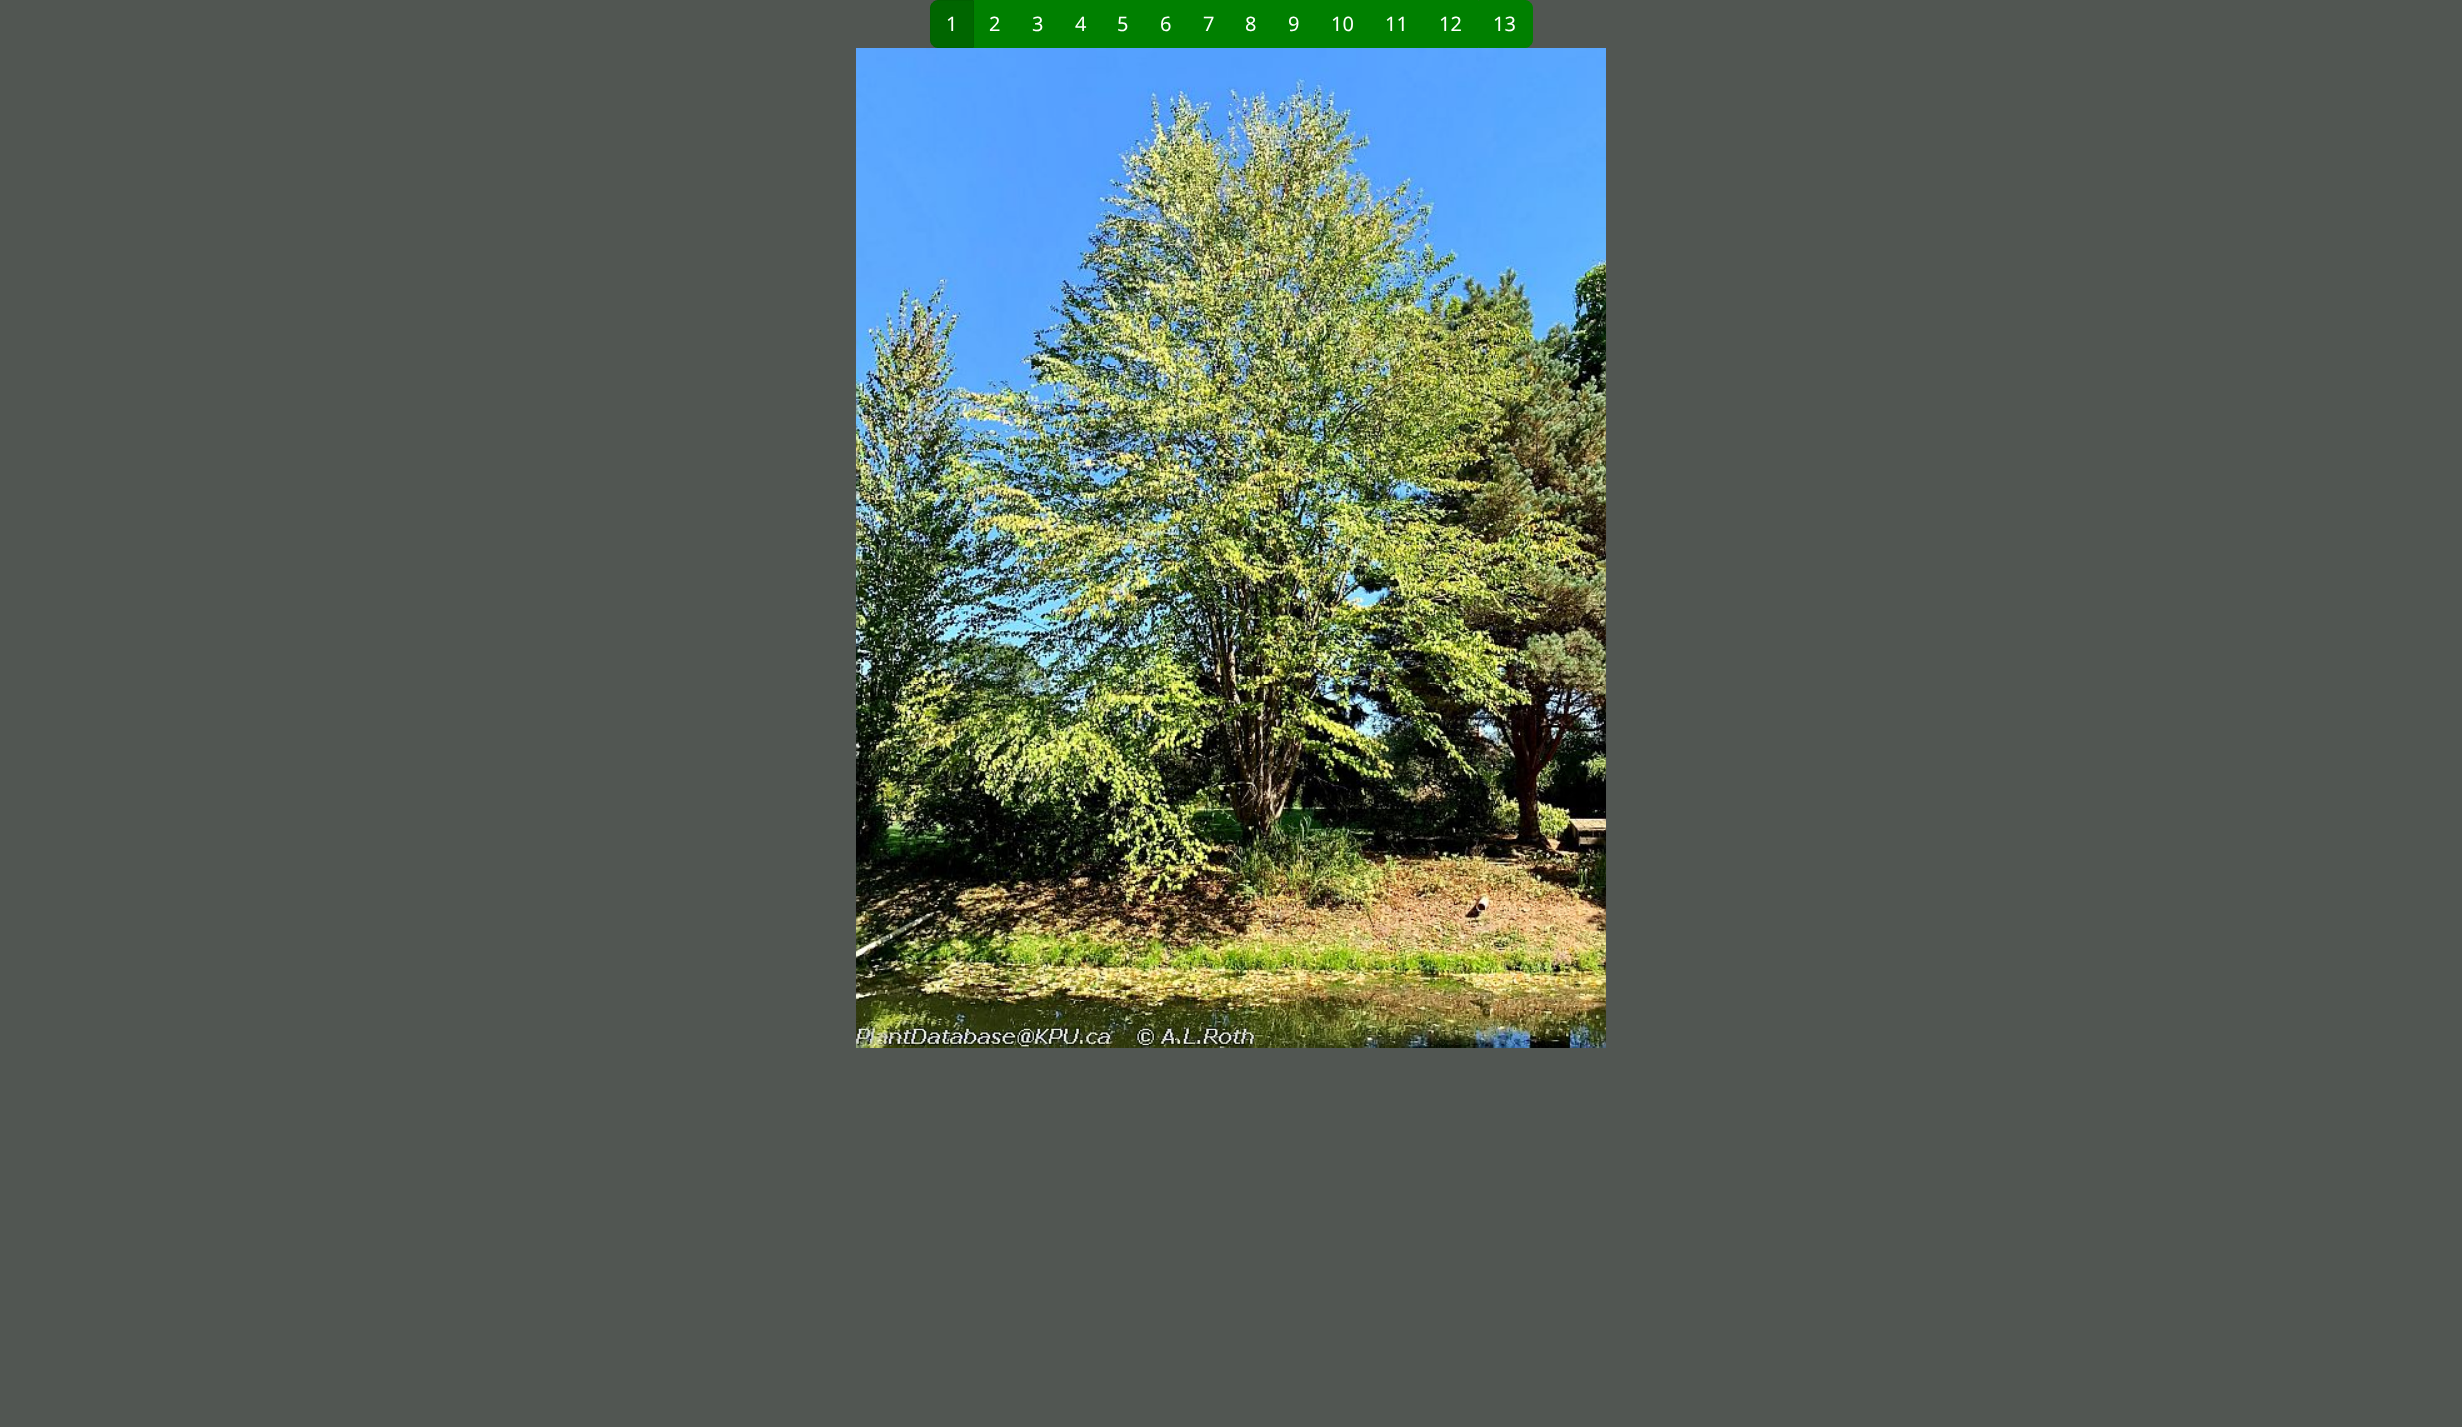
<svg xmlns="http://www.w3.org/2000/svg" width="2462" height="1427">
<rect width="100%" height="100%" fill="#515652"/>
<path d="M938 .5h35.5v47h-35.5c-4 0-7.5-3.5-7.5-7.5v-32c0-4 3.5-7.5 7.5-7.5z" fill="#060" stroke="#006000"/>
<text x="946" y="31" style="font-family:Noto Sans;font-size:20px;fill:#fff">1</text>
<rect x="974" width="504" height="48" fill="#008000"/>
<text x="989" y="31" style="font-family:Noto Sans;font-size:20px;fill:#fff">2</text>
<text x="1032" y="31" style="font-family:Noto Sans;font-size:20px;fill:#fff">3</text>
<text x="1075" y="31" style="font-family:Noto Sans;font-size:20px;fill:#fff">4</text>
<text x="1117" y="31" style="font-family:Noto Sans;font-size:20px;fill:#fff">5</text>
<text x="1160" y="31" style="font-family:Noto Sans;font-size:20px;fill:#fff">6</text>
<text x="1203" y="31" style="font-family:Noto Sans;font-size:20px;fill:#fff">7</text>
<text x="1245" y="31" style="font-family:Noto Sans;font-size:20px;fill:#fff">8</text>
<text x="1288" y="31" style="font-family:Noto Sans;font-size:20px;fill:#fff">9</text>
<text x="1331" y="31" style="font-family:Noto Sans;font-size:20px;fill:#fff">10</text>
<text x="1385" y="31" style="font-family:Noto Sans;font-size:20px;fill:#fff">11</text>
<text x="1439" y="31" style="font-family:Noto Sans;font-size:20px;fill:#fff">12</text>
<path d="M1478.5 .5h46.5c4 0 7.5 3.5 7.5 7.5v32c0 4-3.5 7.5-7.5 7.5h-46.5z" fill="#008000" stroke="#008000"/>
<text x="1493" y="31" style="font-family:Noto Sans;font-size:20px;fill:#fff">13</text>
<image x="856" y="48" width="750" height="1000" href="media/1.png"/>
</svg>
